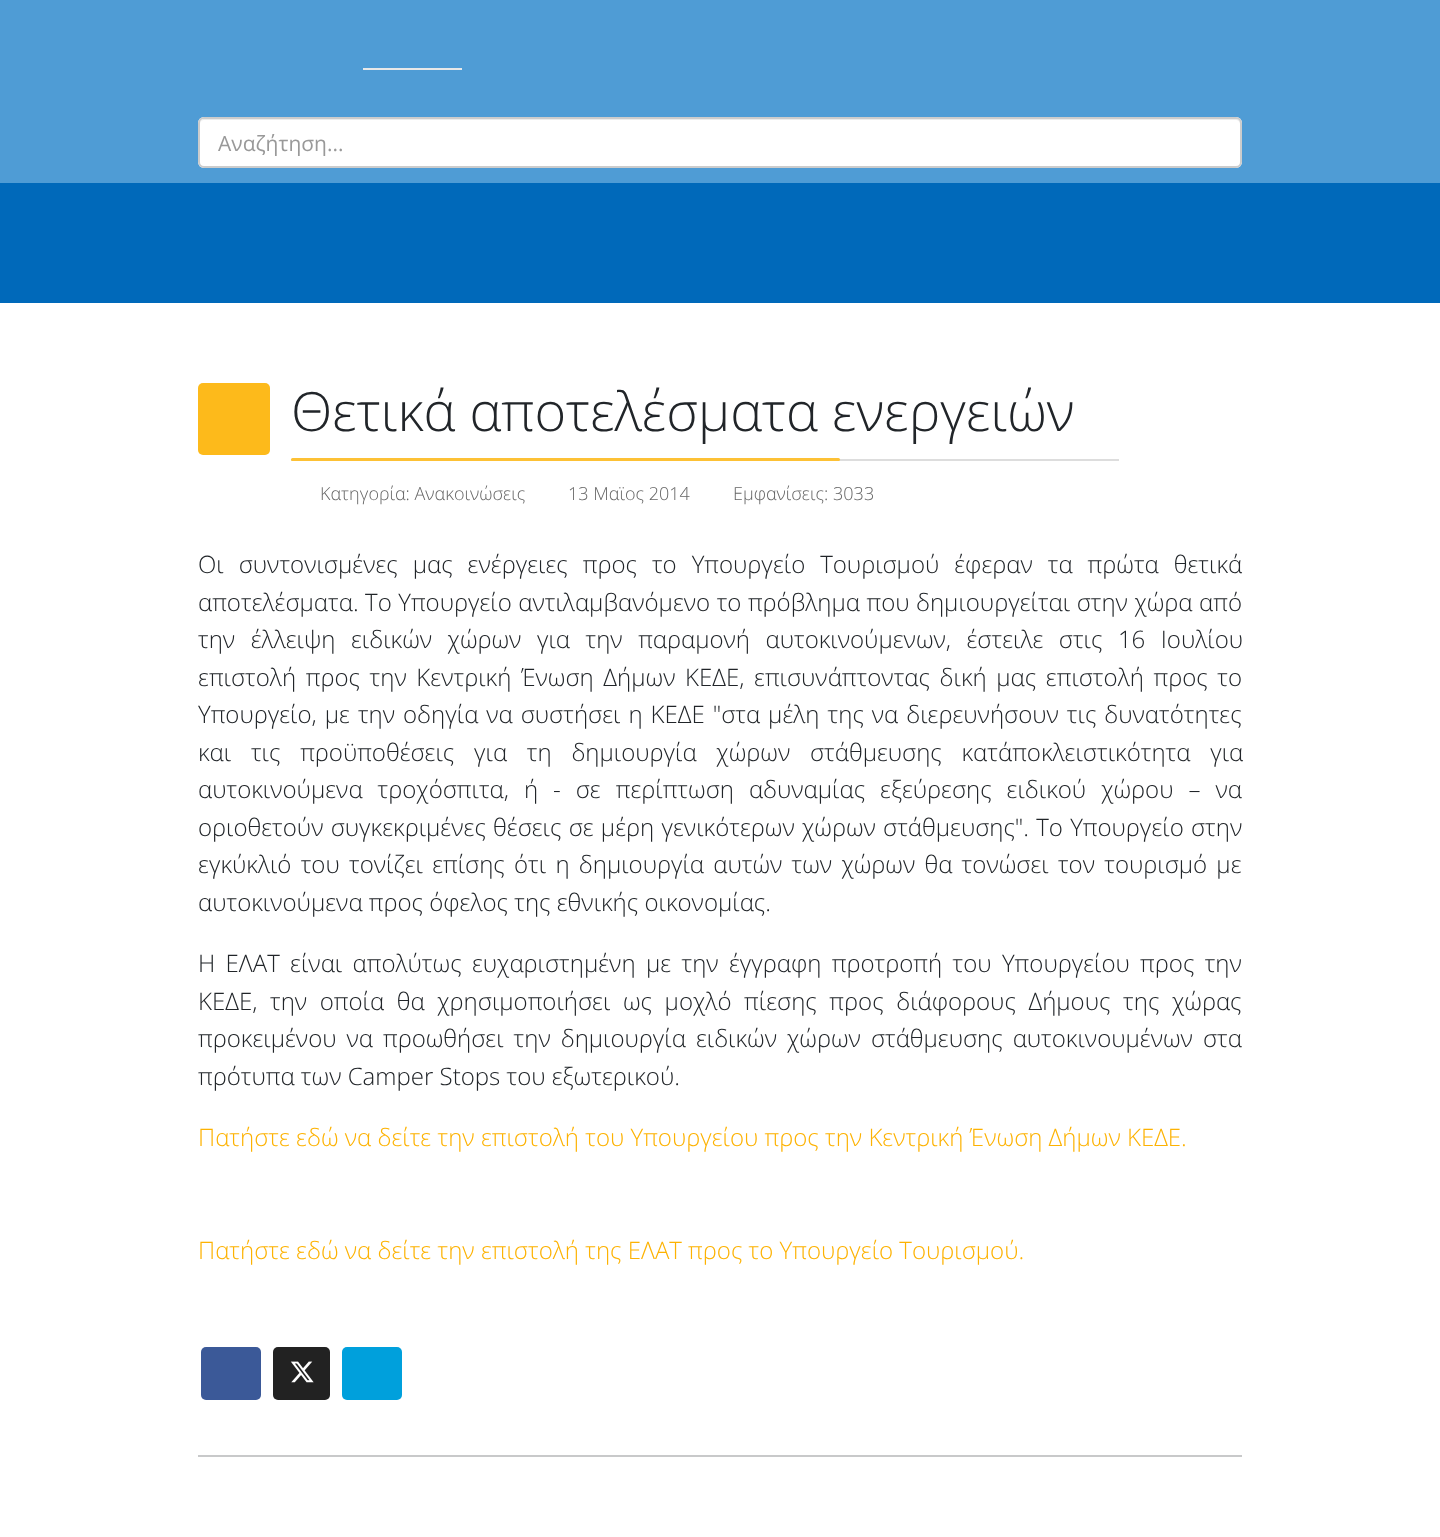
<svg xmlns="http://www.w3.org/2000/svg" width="1440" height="1537">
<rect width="100%" height="100%" fill="#fff"/>
<rect width="1440" height="183" fill="#4f9cd5"/>
<rect x="363" y="68" width="99" height="2" fill="#e8e8e8"/>
<rect x="198" y="117" width="1044" height="51" rx="6" fill="#fff"/>
<path d="M204 120h1032c2 0 4 2 4 4v41c1-1 1-2 1-3v-38c0-3-2-5-5-5h-1031c-3 0-5 2-5 5c0-2 2-4 4-4z" fill="#ececec"/>
<rect x="199" y="118" width="1042" height="49" rx="5" fill="none" stroke="#ccc" stroke-width="2"/>
<text x="218" y="151" style="font-family:Open Sans;font-size:21px;fill:#999">Αναζήτηση...</text>
<rect y="183" width="1440" height="120" fill="#0069ba"/>
<rect x="198" y="383" width="72" height="72" rx="5" fill="#fdba1b"/>
<rect x="291" y="459" width="828" height="2" fill="#ddd"/>
<text x="291" y="431" style="font-family:Open Sans;font-size:54px;font-weight:300;fill:#212529">Θετικά αποτελέσματα ενεργειών</text>
<rect x="291" y="458" width="549" height="3" rx="1.5" fill="#fdc135"/>
<text x="320" y="500" style="font-family:Open Sans;font-size:18px;font-weight:300;fill:#666">Κατηγορία: Ανακοινώσεις</text>
<text x="568" y="500" style="font-family:Open Sans;font-size:18px;font-weight:300;fill:#666">13 Μαϊος 2014</text>
<text x="733" y="500" style="font-family:Open Sans;font-size:18px;font-weight:300;fill:#666">Εμφανίσεις: 3033</text>
<text x="198" y="573" word-spacing="8.75" style="font-family:Open Sans;font-size:24px;font-weight:300;fill:#212529">Οι συντονισμένες μας ενέργειες προς το Υπουργείο Τουρισμού έφεραν τα πρώτα θετικά</text>
<text x="198" y="611" word-spacing="0.25" style="font-family:Open Sans;font-size:24px;font-weight:300;fill:#212529">αποτελέσματα. Το Υπουργείο αντιλαμβανόμενο το πρόβλημα που δημιουργείται στην χώρα από</text>
<text x="198" y="648" word-spacing="9.25" style="font-family:Open Sans;font-size:24px;font-weight:300;fill:#212529">την έλλειψη ειδικών χώρων για την παραμονή αυτοκινούμενων, έστειλε στις 16 Ιουλίου</text>
<text x="198" y="686" word-spacing="3.4" style="font-family:Open Sans;font-size:24px;font-weight:300;fill:#212529">επιστολή προς την Κεντρική Ένωση Δήμων ΚΕΔΕ, επισυνάπτοντας δική μας επιστολή προς το</text>
<text x="198" y="723" word-spacing="1.75" style="font-family:Open Sans;font-size:24px;font-weight:300;fill:#212529">Υπουργείο, με την οδηγία να συστήσει η ΚΕΔΕ "στα μέλη της να διερευνήσουν τις δυνατότητες</text>
<text x="198" y="761" word-spacing="13.5" style="font-family:Open Sans;font-size:24px;font-weight:300;fill:#212529">και τις προϋποθέσεις για τη δημιουργία χώρων στάθμευσης κατ΄αποκλειστικότητα για</text>
<text x="198" y="798" word-spacing="8.75" style="font-family:Open Sans;font-size:24px;font-weight:300;fill:#212529">αυτοκινούμενα τροχόσπιτα, ή - σε περίπτωση αδυναμίας εξεύρεσης ειδικού χώρου – να</text>
<text x="198" y="836" word-spacing="1" style="font-family:Open Sans;font-size:24px;font-weight:300;fill:#212529">οριοθετούν συγκεκριμένες θέσεις σε μέρη γενικότερων χώρων στάθμευσης". Το Υπουργείο στην</text>
<text x="198" y="873" word-spacing="3" style="font-family:Open Sans;font-size:24px;font-weight:300;fill:#212529">εγκύκλιό του τονίζει επίσης ότι η δημιουργία αυτών των χώρων θα τονώσει τον τουρισμό με</text>
<text x="198" y="911" style="font-family:Open Sans;font-size:24px;font-weight:300;fill:#212529">αυτοκινούμενα προς όφελος της εθνικής οικονομίας.</text>
<text x="198" y="972" word-spacing="4.1" style="font-family:Open Sans;font-size:24px;font-weight:300;fill:#212529">Η ΕΛΑΤ είναι απολύτως ευχαριστημένη με την έγγραφη προτροπή του Υπουργείου προς την</text>
<text x="198" y="1010" word-spacing="6.4" style="font-family:Open Sans;font-size:24px;font-weight:300;fill:#212529">ΚΕΔΕ, την οποία θα χρησιμοποιήσει ως μοχλό πίεσης προς διάφορους Δήμους της χώρας</text>
<text x="198" y="1047" word-spacing="3.75" style="font-family:Open Sans;font-size:24px;font-weight:300;fill:#212529">προκειμένου να προωθήσει την δημιουργία ειδικών χώρων στάθμευσης αυτοκινουμένων στα</text>
<text x="198" y="1085" style="font-family:Open Sans;font-size:24px;font-weight:300;fill:#212529">πρότυπα των Camper Stops του εξωτερικού.</text>
<text x="198" y="1146" style="font-family:Open Sans;font-size:24px;font-weight:300;fill:#fdb202">Πατήστε εδώ να δείτε την επιστολή του Υπουργείου προς την Κεντρική Ένωση Δήμων ΚΕΔΕ.</text>
<text x="198" y="1259" style="font-family:Open Sans;font-size:24px;font-weight:300;fill:#fdb202">Πατήστε εδώ να δείτε την επιστολή της ΕΛΑΤ προς το Υπουργείο Τουρισμού.</text>
<rect x="201" y="1347" width="60" height="53" rx="5" fill="#3b5998"/>
<rect x="273" y="1347" width="57" height="53" rx="5" fill="#222"/>
<image x="290" y="1361" width="24" height="22" href="media/1.png"/>
<rect x="342" y="1347" width="60" height="53" rx="5" fill="#00a0dc"/>
<rect x="198" y="1455" width="1044" height="2" fill="#c8c9ca"/>
</svg>
